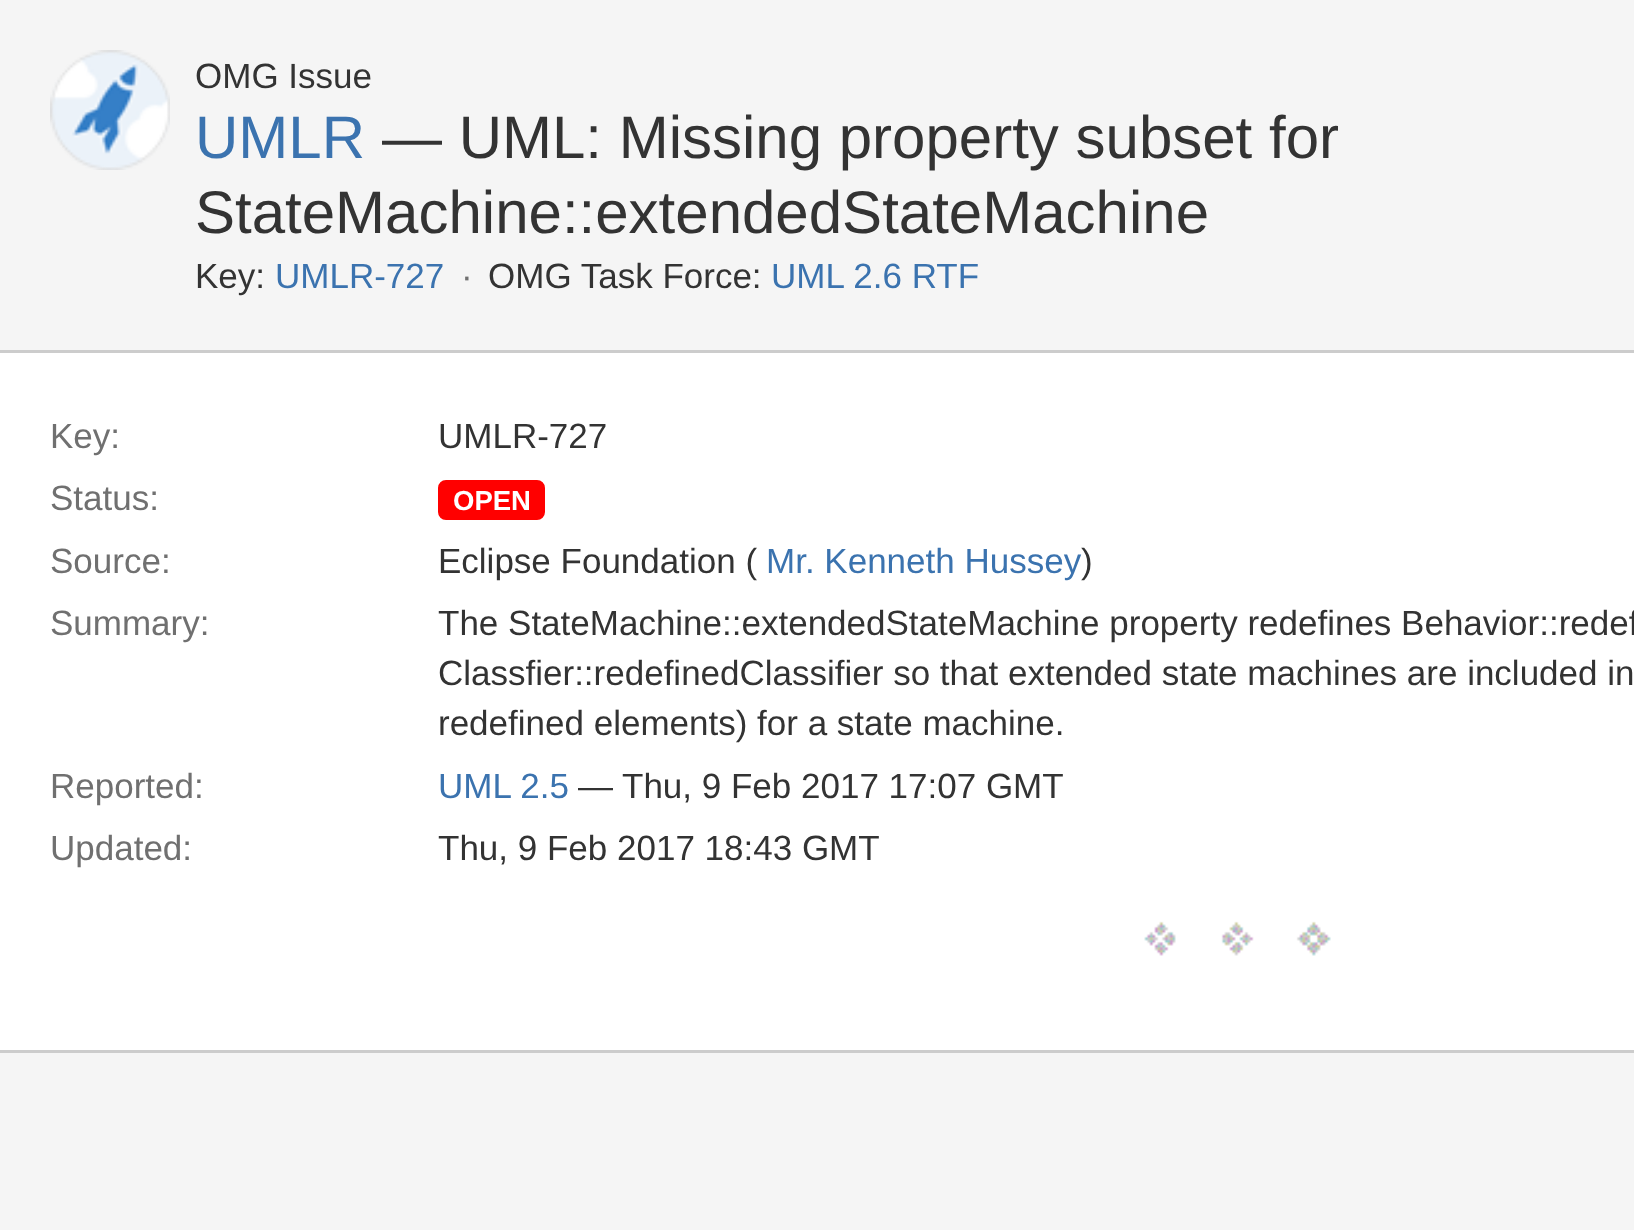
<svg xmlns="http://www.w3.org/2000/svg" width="1634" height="1230">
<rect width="100%" height="100%" fill="#f5f5f5"/>
<image x="50" y="50" width="120" height="120" href="media/1.png"/>
<text x="195" y="88" style="font-family:Liberation Sans;font-size:35px;fill:#333">OMG Issue</text>
<text x="195" y="158" style="font-family:Liberation Sans;font-size:60px;fill:#3b73af">UMLR</text>
<text x="382" y="158" style="font-family:Liberation Sans;font-size:60px;fill:#333">— UML: Missing property subset for</text>
<text x="195" y="233" style="font-family:Liberation Sans;font-size:60px;fill:#333">StateMachine::extendedStateMachine</text>
<text x="195" y="288" style="font-family:Liberation Sans;font-size:35px;fill:#333">Key:</text>
<text x="275" y="288" style="font-family:Liberation Sans;font-size:35px;fill:#3b73af">UMLR-727</text>
<text x="461" y="288" style="font-family:Liberation Sans;font-size:35px;fill:#707070">·</text>
<text x="488" y="288" style="font-family:Liberation Sans;font-size:35px;fill:#333">OMG Task Force:</text>
<text x="771" y="288" style="font-family:Liberation Sans;font-size:35px;fill:#3b73af">UML 2.6 RTF</text>
<rect y="353" width="1634" height="697" fill="#fff"/>
<rect y="350" width="1634" height="3" fill="#ccc"/>
<rect y="1050" width="1634" height="3" fill="#ccc"/>
<text x="50" y="448" style="font-family:Liberation Sans;font-size:35px;fill:#707070">Key:</text>
<text x="438" y="448" style="font-family:Liberation Sans;font-size:35px;fill:#333">UMLR-727</text>
<text x="50" y="510" style="font-family:Liberation Sans;font-size:35px;fill:#707070">Status:</text>
<rect x="439.5" y="481.5" width="104" height="37" rx="6.5" fill="#f00" stroke="#f00" stroke-width="3"/>
<text x="453" y="510" style="font-family:Liberation Sans;font-size:27.5px;font-weight:bold;fill:#fff">OPEN</text>
<text x="50" y="573" style="font-family:Liberation Sans;font-size:35px;fill:#707070">Source:</text>
<text x="438" y="573" style="font-family:Liberation Sans;font-size:35px;fill:#333">Eclipse Foundation (</text>
<text x="766" y="573" style="font-family:Liberation Sans;font-size:35px;fill:#3b73af">Mr. Kenneth Hussey</text>
<text x="1081" y="573" style="font-family:Liberation Sans;font-size:35px;fill:#333">)</text>
<text x="50" y="635" style="font-family:Liberation Sans;font-size:35px;fill:#707070">Summary:</text>
<text x="438" y="635" style="font-family:Liberation Sans;font-size:35px;fill:#333">The StateMachine::extendedStateMachine property redefines Behavior::redef</text>
<text x="438" y="685" style="font-family:Liberation Sans;font-size:35px;fill:#333">Classfier::redefinedClassifier so that extended state machines are included in</text>
<text x="438" y="735" style="font-family:Liberation Sans;font-size:35px;fill:#333">redefined elements) for a state machine.</text>
<text x="50" y="798" style="font-family:Liberation Sans;font-size:35px;fill:#707070">Reported:</text>
<text x="438" y="798" style="font-family:Liberation Sans;font-size:35px;fill:#3b73af">UML 2.5</text>
<text x="578" y="798" style="font-family:Liberation Sans;font-size:35px;fill:#333">—</text>
<text x="622" y="798" style="font-family:Liberation Sans;font-size:35px;fill:#333">Thu, 9 Feb 2017 17:07 GMT</text>
<text x="50" y="860" style="font-family:Liberation Sans;font-size:35px;fill:#707070">Updated:</text>
<text x="438" y="860" style="font-family:Liberation Sans;font-size:35px;fill:#333">Thu, 9 Feb 2017 18:43 GMT</text>
<image x="1144" y="921" width="187" height="35" href="media/2.png"/>
</svg>
